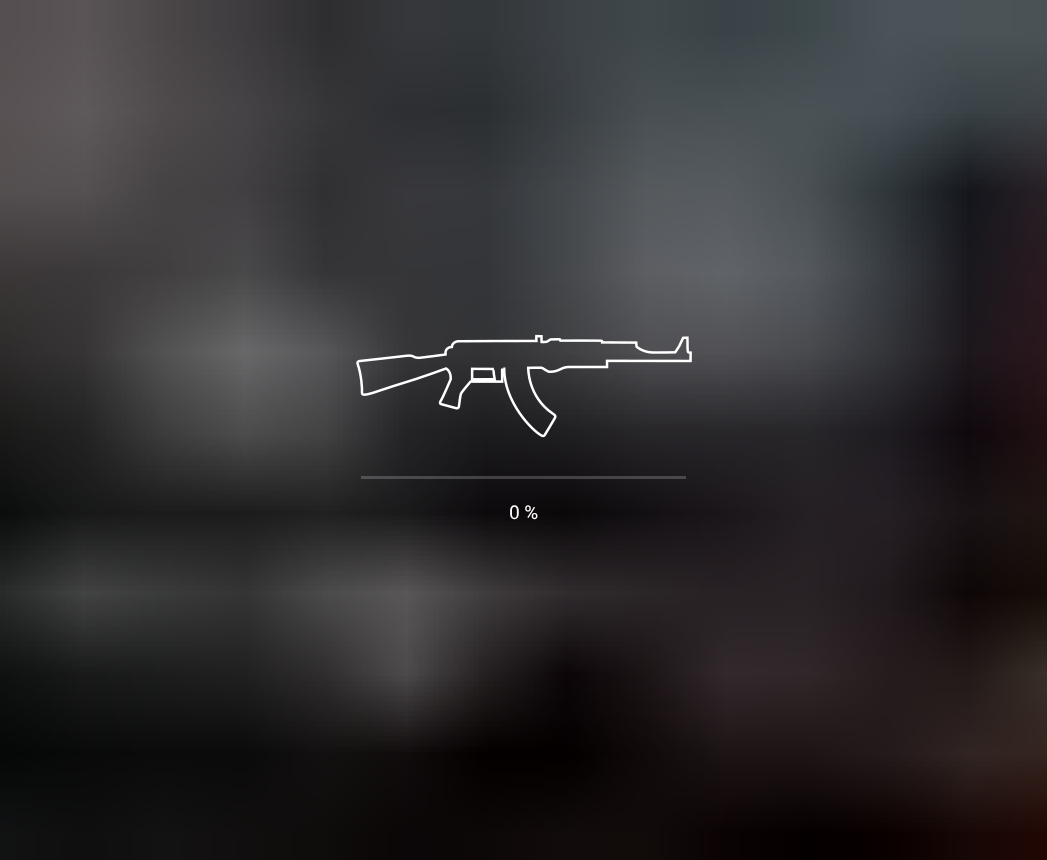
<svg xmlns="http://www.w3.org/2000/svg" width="1047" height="860">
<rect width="100%" height="100%" fill="#000"/>
<image x="0" y="0" width="1047" height="860" href="media/1.png"/>
<image x="356" y="334" width="336" height="104" href="media/2.png"/>
<rect x="361" y="476" width="325" height="3" fill="#ffffff33"/>
<text x="509" y="519" style="font-family:Roboto Slab;font-size:19px;fill:#fff">0 %</text>
</svg>
